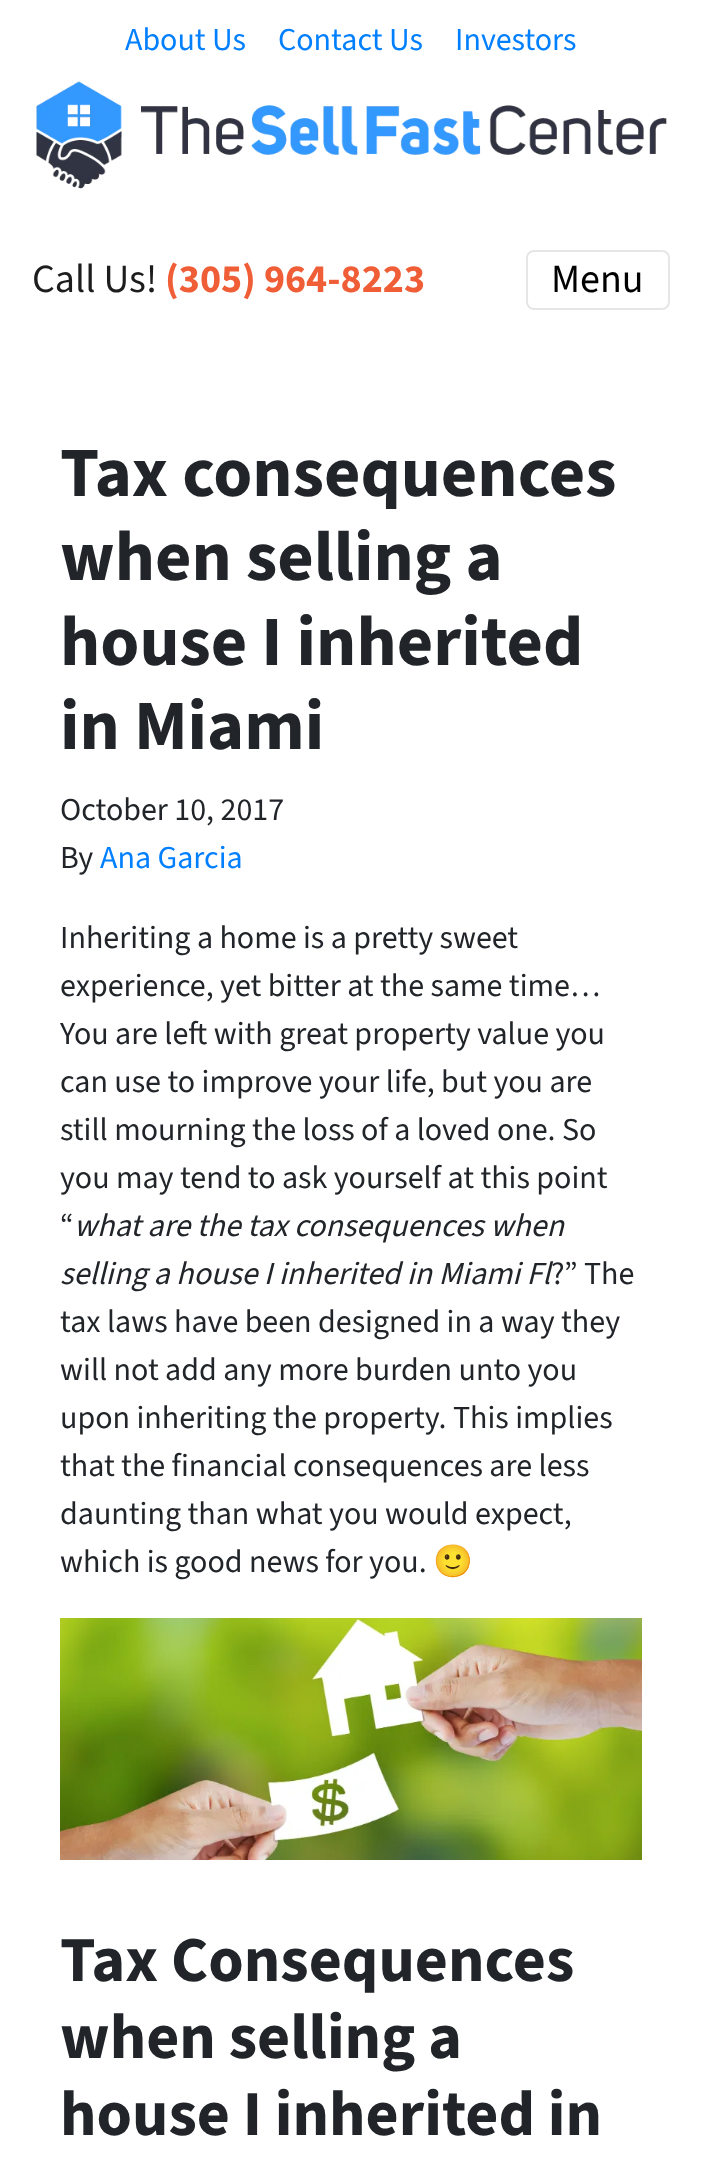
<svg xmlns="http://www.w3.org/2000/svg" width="701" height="2158">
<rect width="100%" height="100%" fill="#fff"/>
<text x="125" y="50" style="font-family:'Source Sans 3';font-size:32px;fill:#007fff">About Us</text>
<text x="278" y="50" style="font-family:'Source Sans 3';font-size:32px;fill:#007fff">Contact Us</text>
<text x="455" y="50" style="font-family:'Source Sans 3';font-size:32px;fill:#007fff">Investors</text>
<image x="36" y="81" width="631" height="108" href="media/1.png"/>
<text x="32" y="292" style="font-family:'Source Sans 3';font-size:40px;fill:#1d1d1d">Call Us!</text>
<text x="165" y="292" style="font-family:'Source Sans 3';font-size:40px;font-weight:bold;fill:#ef5e36">(305) 964-8223</text>
<rect x="527" y="251" width="142" height="58" rx="7" fill="none" stroke="#e6e6e6" stroke-width="2"/>
<text x="551" y="292" style="font-family:'Source Sans 3';font-size:40px;fill:#000">Menu</text>
<text x="60" y="496" style="font-family:'Source Sans 3';font-size:70.5px;font-weight:bold;fill:#212529">Tax consequences</text>
<text x="60" y="580" style="font-family:'Source Sans 3';font-size:70.5px;font-weight:bold;fill:#212529">when selling a</text>
<text x="60" y="665" style="font-family:'Source Sans 3';font-size:70.5px;font-weight:bold;fill:#212529">house I inherited</text>
<text x="60" y="749" style="font-family:'Source Sans 3';font-size:70.5px;font-weight:bold;fill:#212529">in Miami</text>
<text x="60" y="820" style="font-family:'Source Sans 3';font-size:32px;fill:#212529">October 10, 2017</text>
<text x="60" y="868" style="font-family:'Source Sans 3';font-size:32px;fill:#212529">By</text>
<text x="100" y="868" style="font-family:'Source Sans 3';font-size:32px;fill:#007fff">Ana Garcia</text>
<text x="60" y="948" style="font-family:'Source Sans 3';font-size:32px;fill:#212529">Inheriting a home is a pretty sweet</text>
<text x="60" y="996" style="font-family:'Source Sans 3';font-size:32px;fill:#212529">experience, yet bitter at the same time…</text>
<text x="60" y="1044" style="font-family:'Source Sans 3';font-size:32px;fill:#212529">You are left with great property value you</text>
<text x="60" y="1092" style="font-family:'Source Sans 3';font-size:32px;fill:#212529">can use to improve your life, but you are</text>
<text x="60" y="1140" style="font-family:'Source Sans 3';font-size:32px;fill:#212529">still mourning the loss of a loved one. So</text>
<text x="60" y="1188" style="font-family:'Source Sans 3';font-size:32px;fill:#212529">you may tend to ask yourself at this point</text>
<text x="60" y="1236" style="font-family:'Source Sans 3';font-size:32px;fill:#212529">“</text>
<text x="74" y="1236" style="font-family:'Source Sans 3';font-size:32px;font-style:italic;fill:#212529">what are the tax consequences when</text>
<text x="60" y="1284" style="font-family:'Source Sans 3';font-size:32px;font-style:italic;fill:#212529">selling a house I inherited in Miami Fl</text>
<text x="551" y="1284" style="font-family:'Source Sans 3';font-size:32px;fill:#212529">?” The</text>
<text x="60" y="1332" style="font-family:'Source Sans 3';font-size:32px;fill:#212529">tax laws have been designed in a way they</text>
<text x="60" y="1380" style="font-family:'Source Sans 3';font-size:32px;fill:#212529">will not add any more burden unto you</text>
<text x="60" y="1428" style="font-family:'Source Sans 3';font-size:32px;fill:#212529">upon inheriting the property. This implies</text>
<text x="60" y="1476" style="font-family:'Source Sans 3';font-size:32px;fill:#212529">that the financial consequences are less</text>
<text x="60" y="1524" style="font-family:'Source Sans 3';font-size:32px;fill:#212529">daunting than what you would expect,</text>
<text x="60" y="1572" style="font-family:'Source Sans 3';font-size:32px;fill:#212529">which is good news for you.</text>
<text x="433" y="1572" style="font-family:Noto Color Emoji;font-size:32px;fill:#212529">🙂</text>
<image x="60" y="1618" width="582" height="242" href="media/2.png"/>
<text x="60" y="1981" style="font-family:'Source Sans 3';font-size:64px;font-weight:bold;fill:#212529">Tax Consequences</text>
<text x="60" y="2058" style="font-family:'Source Sans 3';font-size:64px;font-weight:bold;fill:#212529">when selling a</text>
<text x="60" y="2135" style="font-family:'Source Sans 3';font-size:64px;font-weight:bold;fill:#212529">house I inherited in</text>
</svg>
